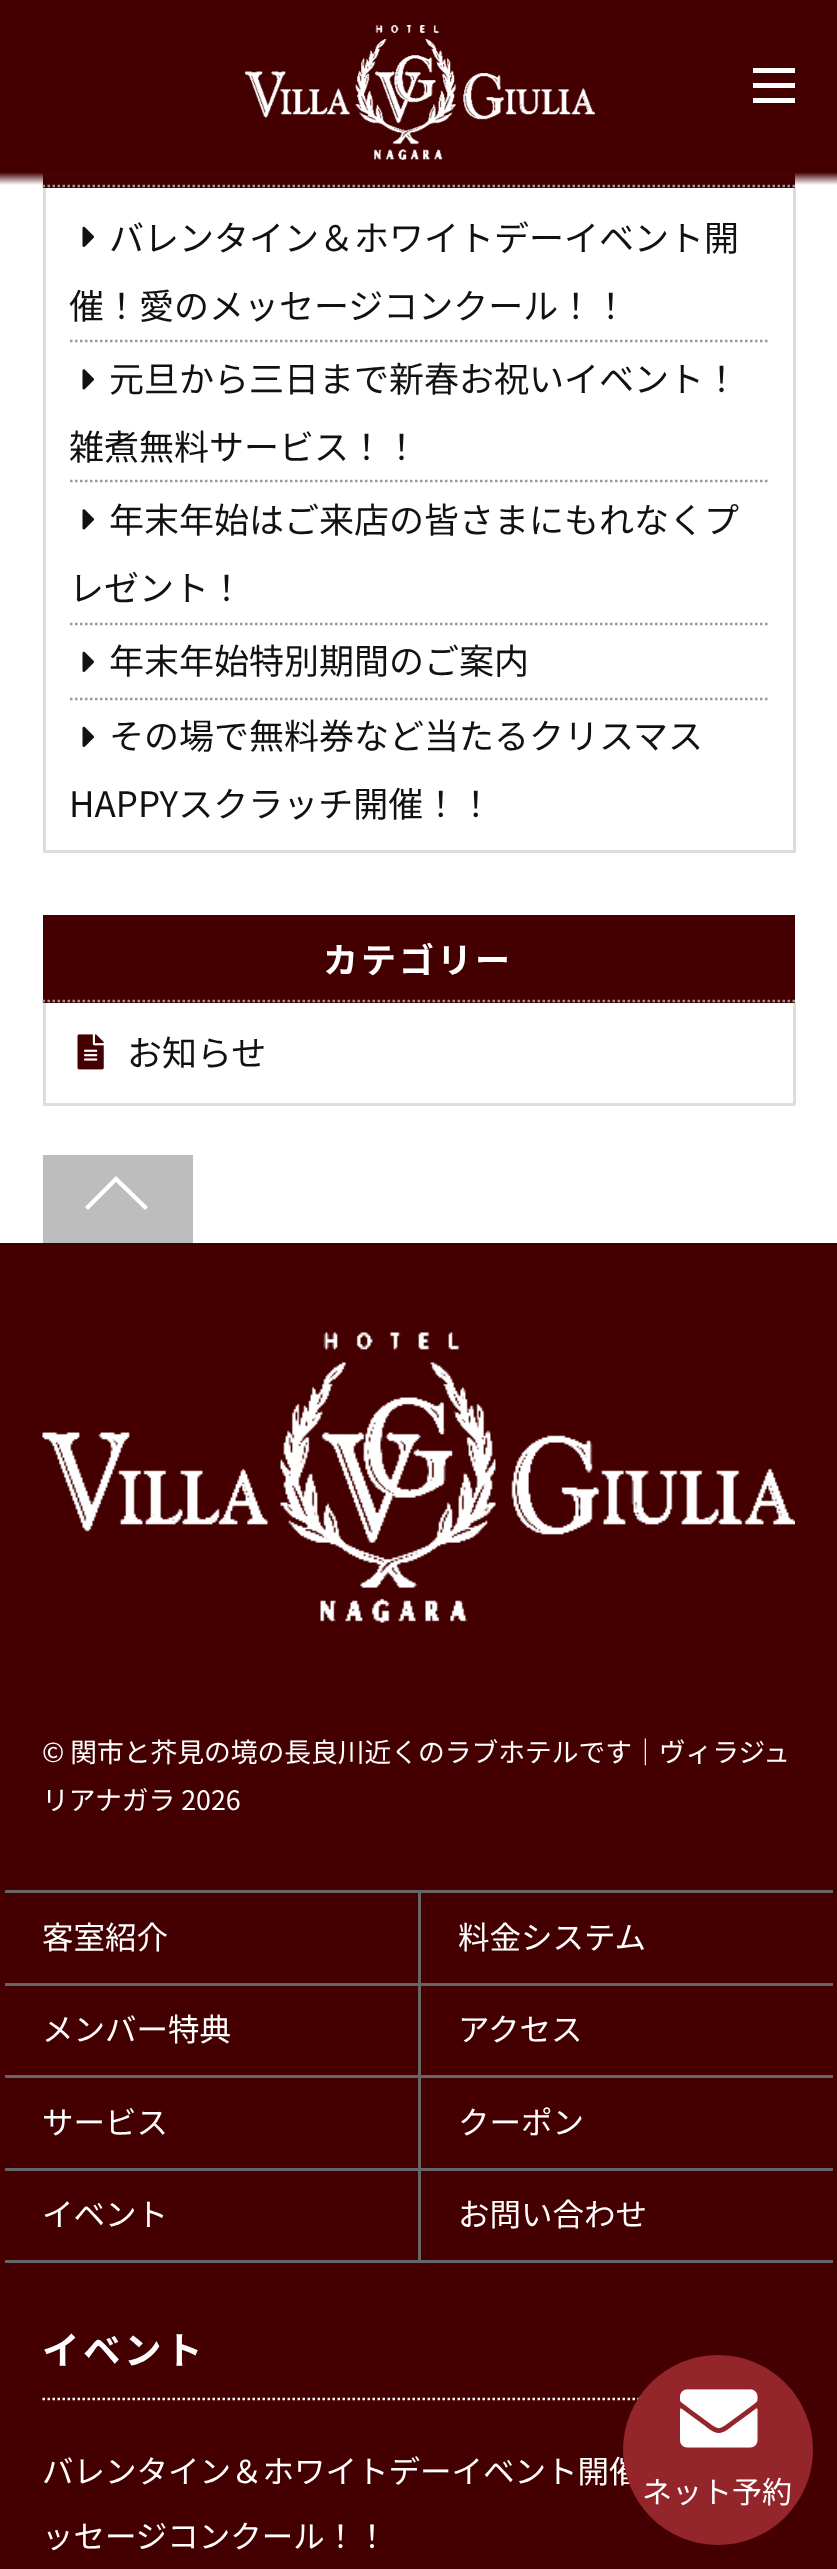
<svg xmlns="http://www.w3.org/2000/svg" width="837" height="2569">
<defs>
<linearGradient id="g1" gradientUnits="userSpaceOnUse" x1="419" y1="172" x2="419" y2="185"><stop offset="0" stop-color="#400"/><stop offset="1" stop-color="#400" stop-opacity="0"/></linearGradient>
</defs>
<rect width="100%" height="100%" fill="#fff"/>
<rect x="43" y="173" width="752" height="15" fill="#400"/>
<path d="M42.5 186h752.5" fill="none" stroke="#999" stroke-width="2.5" stroke-dasharray="2.5 2.5"/>
<rect x="793" y="188" width="3" height="665" fill="#ddd"/>
<rect x="43" y="850" width="752" height="3" fill="#ddd"/>
<rect x="43" y="188" width="3" height="665" fill="#ddd"/>
<path d="M70 341h697.5" fill="none" stroke="#999" stroke-width="2.5" stroke-dasharray="2.5 2.5"/>
<image x="82" y="226" width="12" height="21" href="media/1.png"/>
<text x="109" y="251" style="font-family:Noto Sans JP;font-size:35px;fill:#111">バレンタイン＆ホワイトデーイベント開</text>
<text x="69" y="319" style="font-family:Noto Sans JP;font-size:35px;fill:#111">催！愛のメッセージコンクール！！</text>
<path d="M70 481h697.5" fill="none" stroke="#999" stroke-width="2.5" stroke-dasharray="2.5 2.5"/>
<image x="82" y="369" width="12" height="21" href="media/2.png"/>
<text x="109" y="392" style="font-family:Noto Sans JP;font-size:35px;fill:#111">元旦から三日まで新春お祝いイベント！</text>
<text x="69" y="460" style="font-family:Noto Sans JP;font-size:35px;fill:#111">雑煮無料サービス！！</text>
<path d="M70 624h697.5" fill="none" stroke="#999" stroke-width="2.5" stroke-dasharray="2.5 2.5"/>
<image x="82" y="509" width="12" height="21" href="media/2.png"/>
<text x="109" y="533" style="font-family:Noto Sans JP;font-size:35px;fill:#111">年末年始はご来店の皆さまにもれなくプ</text>
<text x="69" y="601" style="font-family:Noto Sans JP;font-size:35px;fill:#111">レゼント！</text>
<path d="M70 699h697.5" fill="none" stroke="#999" stroke-width="2.5" stroke-dasharray="2.5 2.5"/>
<image x="82" y="651" width="12" height="21" href="media/1.png"/>
<text x="109" y="674" style="font-family:Noto Sans JP;font-size:35px;fill:#111">年末年始特別期間のご案内</text>
<image x="82" y="726" width="12" height="21" href="media/1.png"/>
<text x="109" y="749" style="font-family:Noto Sans JP;font-size:35px;fill:#111">その場で無料券など当たるクリスマス</text>
<text x="69" y="817" style="font-family:Noto Sans JP;font-size:35px;fill:#111">HAPPYスクラッチ開催！！</text>
<rect x="43" y="915" width="752" height="88" fill="#400"/>
<path d="M42.5 1001h752.5" fill="none" stroke="#999" stroke-width="2.5" stroke-dasharray="2.5 2.5"/>
<text x="323" y="973" style="font-family:Noto Sans JP;font-size:35px;font-weight:bold;letter-spacing:3px;fill:#fff">カテゴリー</text>
<rect x="793" y="1003" width="3" height="102" fill="#ddd"/>
<rect x="43" y="1103" width="752" height="3" fill="#ddd"/>
<rect x="43" y="1003" width="3" height="102" fill="#ddd"/>
<image x="77" y="1034" width="27" height="36" href="media/3.png"/>
<text x="127" y="1066" style="font-family:Noto Sans JP;font-size:35px;fill:#111">お知らせ</text>
<rect y="1246" width="837" height="1323" fill="#400"/>
<rect y="1243" width="837" height="3" fill="#410000"/>
<rect x="43" y="1155" width="150" height="88" fill="#bdbdbd"/>
<path d="M148 1207l-3 3l-29-28l-28 28l-3-3l31-31z" fill="#fff"/>
<image x="42" y="1332" width="753" height="291" href="media/4.png"/>
<text x="42" y="1762" style="font-family:Noto Sans JP;font-size:26.75px;fill:#fff">© 関市と芥見の境の長良川近くのラブホテルです｜ヴィラジュ</text>
<text x="42" y="1810" style="font-family:Noto Sans JP;font-size:26.75px;fill:#fff">リアナガラ 2026</text>
<rect x="5" y="2260" width="828" height="3" fill="#666"/>
<rect x="5" y="1890" width="415" height="3" fill="#666"/>
<rect x="418" y="1890" width="3" height="93" fill="#666"/>
<text x="42" y="1949" style="font-family:Noto Sans JP;font-size:31.5px;fill:#fff">客室紹介</text>
<rect x="420" y="1890" width="413" height="3" fill="#666"/>
<text x="458" y="1949" style="font-family:Noto Sans JP;font-size:31.5px;fill:#fff">料金システム</text>
<rect x="5" y="1983" width="415" height="3" fill="#666"/>
<rect x="418" y="1983" width="3" height="92" fill="#666"/>
<text x="42" y="2041" style="font-family:Noto Sans JP;font-size:31.5px;fill:#fff">メンバー特典</text>
<rect x="420" y="1983" width="413" height="3" fill="#666"/>
<text x="458" y="2041" style="font-family:Noto Sans JP;font-size:31.5px;fill:#fff">アクセス</text>
<rect x="5" y="2075" width="415" height="3" fill="#666"/>
<rect x="418" y="2075" width="3" height="93" fill="#666"/>
<text x="42" y="2134" style="font-family:Noto Sans JP;font-size:31.5px;fill:#fff">サービス</text>
<rect x="420" y="2075" width="413" height="3" fill="#666"/>
<text x="458" y="2134" style="font-family:Noto Sans JP;font-size:31.5px;fill:#fff">クーポン</text>
<rect x="5" y="2168" width="415" height="3" fill="#666"/>
<rect x="418" y="2168" width="3" height="92" fill="#666"/>
<text x="42" y="2226" style="font-family:Noto Sans JP;font-size:31.5px;fill:#fff">イベント</text>
<rect x="420" y="2168" width="413" height="3" fill="#666"/>
<text x="458" y="2226" style="font-family:Noto Sans JP;font-size:31.5px;fill:#fff">お問い合わせ</text>
<path d="M42.5 2399h752.5" fill="none" stroke="#fff" stroke-width="2.5" stroke-dasharray="2.5 2.5"/>
<text x="42" y="2364" style="font-family:Noto Sans JP;font-size:37.5px;font-weight:bold;letter-spacing:3.5px;fill:#fff">イベント</text>
<text x="42" y="2483" style="font-family:Noto Sans JP;font-size:31.5px;fill:#fff">バレンタイン＆ホワイトデーイベント開催</text>
<text x="42" y="2548" style="font-family:Noto Sans JP;font-size:31.5px;fill:#fff">ッセージコンクール！！</text>
<rect x="-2" y="-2" width="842" height="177" fill="#4242424d" filter="blur(2.5px)"/>
<rect width="837" height="173" fill="#400"/>
<image x="244" y="25" width="351" height="135" href="media/5.png"/>
<rect x="753" y="98" width="42" height="5" fill="#fff"/>
<rect x="753" y="68" width="42" height="5" fill="#fff"/>
<rect x="753" y="83" width="42" height="5" fill="#fff"/>
<rect y="173" width="837" height="12" fill="url(#g1)"/>
<circle cx="718" cy="2450" r="95" fill="#94252a"/>
<image x="680" y="2389" width="78" height="59" href="media/6.png"/>
<text x="642" y="2503" style="font-family:Noto Sans JP;font-size:30px;fill:#fff">ネット予約</text>
</svg>
